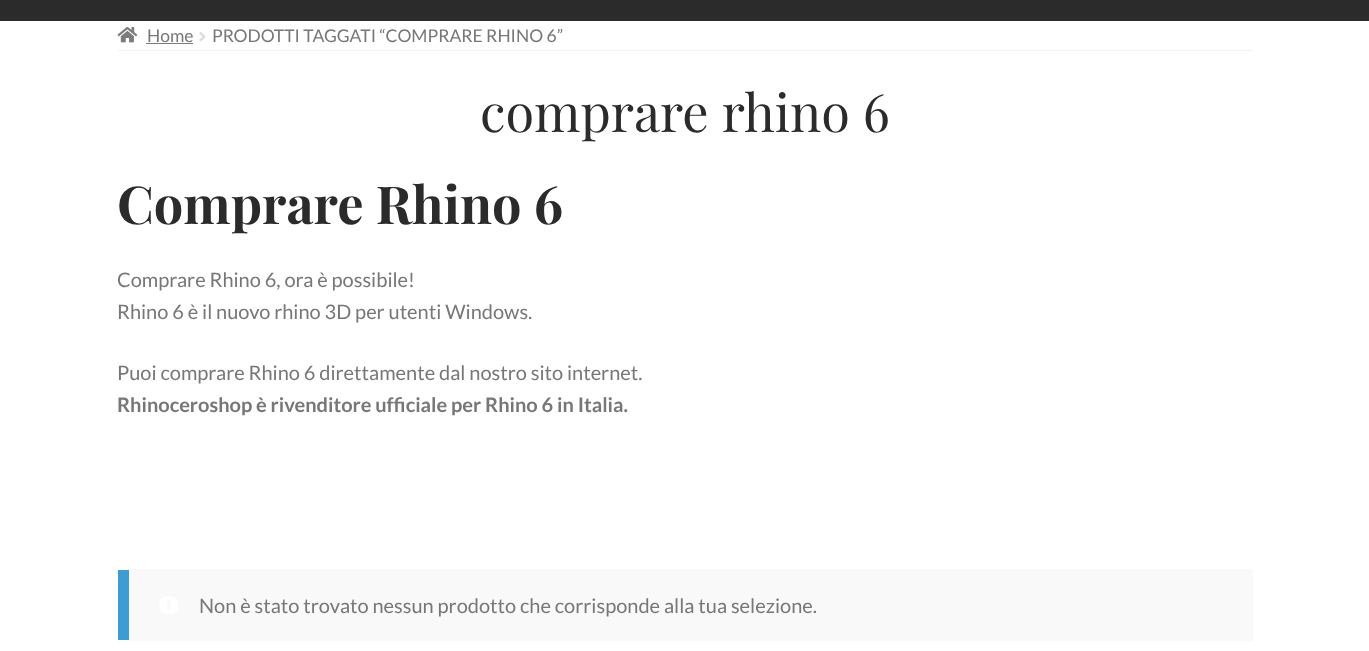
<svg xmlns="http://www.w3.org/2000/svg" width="1369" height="651">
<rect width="100%" height="100%" fill="#fff"/>
<rect width="1369" height="21" fill="#2b2b2b"/>
<rect x="118" y="50" width="1135" height="1" fill="#f2f2f2"/>
<image x="117" y="27" width="21" height="16" href="media/1.png"/>
<text x="147" y="42" style="font-family:Lato;font-size:17.5px;fill:#777">Home</text>
<rect x="146" y="43" width="47" height="1" fill="#7c7c7c"/>
<image x="199" y="32" width="7" height="10" href="media/2.png"/>
<text x="212" y="42" style="font-family:Lato;font-size:17.5px;fill:#777">PRODOTTI TAGGATI “COMPRARE RHINO 6”</text>
<text x="480" y="132" style="font-family:Playfair Display;font-size:52.25px;fill:#2b2b2b">comprare rhino 6</text>
<text x="117" y="224" style="font-family:Playfair Display;font-size:52.25px;font-weight:bold;fill:#2b2b2b">Comprare Rhino 6</text>
<text x="117" y="287" style="font-family:Lato;font-size:20px;fill:#777">Comprare Rhino 6, ora è possibile!</text>
<text x="117" y="319" style="font-family:Lato;font-size:20px;fill:#777">Rhino 6 è il nuovo rhino 3D per utenti Windows.</text>
<text x="117" y="380" style="font-family:Lato;font-size:20px;fill:#777">Puoi comprare Rhino 6 direttamente dal nostro sito internet.</text>
<text x="117" y="412" style="font-family:Lato;font-size:20px;font-weight:bold;fill:#777">Rhinoceroshop è rivenditore ufficiale per Rhino 6 in Italia.</text>
<rect x="118" y="569" width="1135" height="72" rx="2.5" fill="#f9f9f9"/>
<rect x="118" y="570" width="11" height="70" fill="#3d9cd2"/>
<image x="159" y="596" width="19" height="18" href="media/3.png"/>
<text x="199" y="613" style="font-family:Lato;font-size:20px;fill:#777">Non è stato trovato nessun prodotto che corrisponde alla tua selezione.</text>
</svg>
